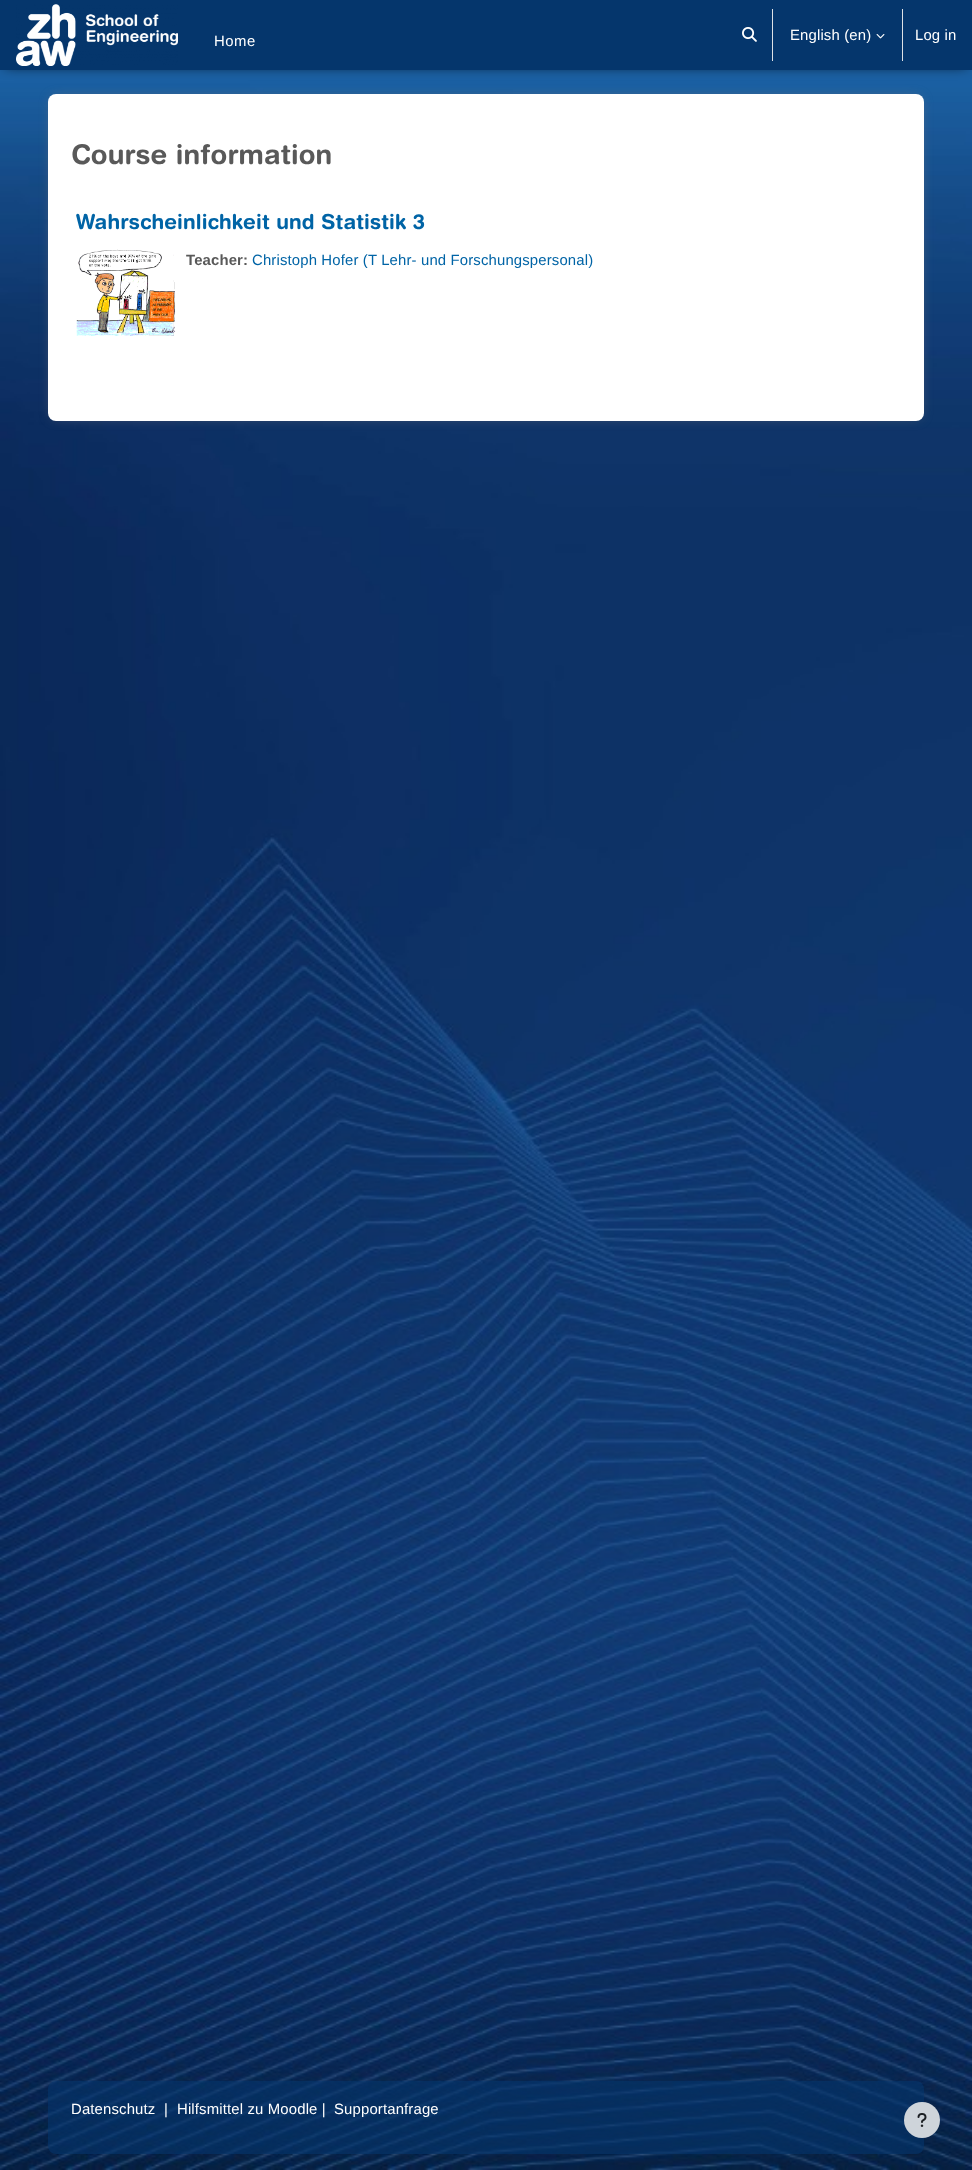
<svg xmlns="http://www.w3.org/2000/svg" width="972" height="2170">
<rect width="100%" height="100%" fill="#fff"/>
<image x="0" y="70" width="972" height="2100" href="media/1.png"/>
<rect x="5" y="5" width="962" height="60" fill="#000" filter="blur(6.5px)"/>
<rect width="972" height="70" fill="#05366c"/>
<image x="16" y="4" width="162" height="62" href="media/2.png"/>
<text x="214" y="46" style="font-family:Liberation Sans;font-size:14.9px;letter-spacing:0.5px;fill:#fff">Home</text>
<image x="742" y="27" width="15" height="15" href="media/3.png"/>
<rect x="772" y="9" width="1" height="52" fill="#dee2e6"/>
<text x="790" y="40" style="font-family:Liberation Sans;font-size:14.9px;letter-spacing:0.15px;fill:#fff">English (en)</text>
<image x="876" y="34" width="9" height="5" href="media/4.png"/>
<rect x="902" y="9" width="1" height="52" fill="#dee2e6"/>
<text x="915" y="40" style="font-family:Liberation Sans;font-size:14.9px;letter-spacing:0.15px;fill:#fff">Log in</text>
<rect x="53" y="99" width="866" height="317" rx="3" fill="#847c7cb8" filter="blur(6.5px)"/>
<rect x="48" y="94" width="876" height="327" rx="8" fill="#fff"/>
<text x="71" y="164" style="font-family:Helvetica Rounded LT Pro;font-size:27.25px;font-weight:bold;letter-spacing:0.15px;fill:#595959">Course information</text>
<text x="76" y="229" style="font-family:Helvetica Rounded LT Pro;font-size:20.75px;font-weight:bold;letter-spacing:0.15px;fill:#0064a6">Wahrscheinlichkeit und Statistik 3</text>
<image x="76" y="249" width="100" height="87" href="media/5.png"/>
<text x="186" y="265" style="font-family:Liberation Sans;font-size:14.9px;font-weight:bold;letter-spacing:0.15px;fill:#595959">Teacher:</text>
<text x="252" y="265" style="font-family:Liberation Sans;font-size:14.9px;letter-spacing:0.15px;fill:#0064a6">Christoph Hofer (T Lehr- und Forschungspersonal)</text>
<rect x="48" y="2081" width="876" height="73" rx="8" fill="#05366c99"/>
<text x="71" y="2114" style="font-family:Liberation Sans;font-size:14.9px;letter-spacing:0.15px;fill:#fff">Datenschutz</text>
<text x="164" y="2114" style="font-family:Liberation Sans;font-size:14.9px;letter-spacing:0.15px;fill:#fff">|</text>
<text x="177" y="2114" style="font-family:Liberation Sans;font-size:14.9px;letter-spacing:0.15px;fill:#fff">Hilfsmittel zu Moodle |</text>
<text x="334" y="2114" style="font-family:Liberation Sans;font-size:14.9px;letter-spacing:0.15px;fill:#fff">Supportanfrage</text>
<circle cx="922" cy="2120" r="18" fill="#ced4da"/>
<image x="917" y="2113" width="10" height="14" href="media/6.png"/>
</svg>
